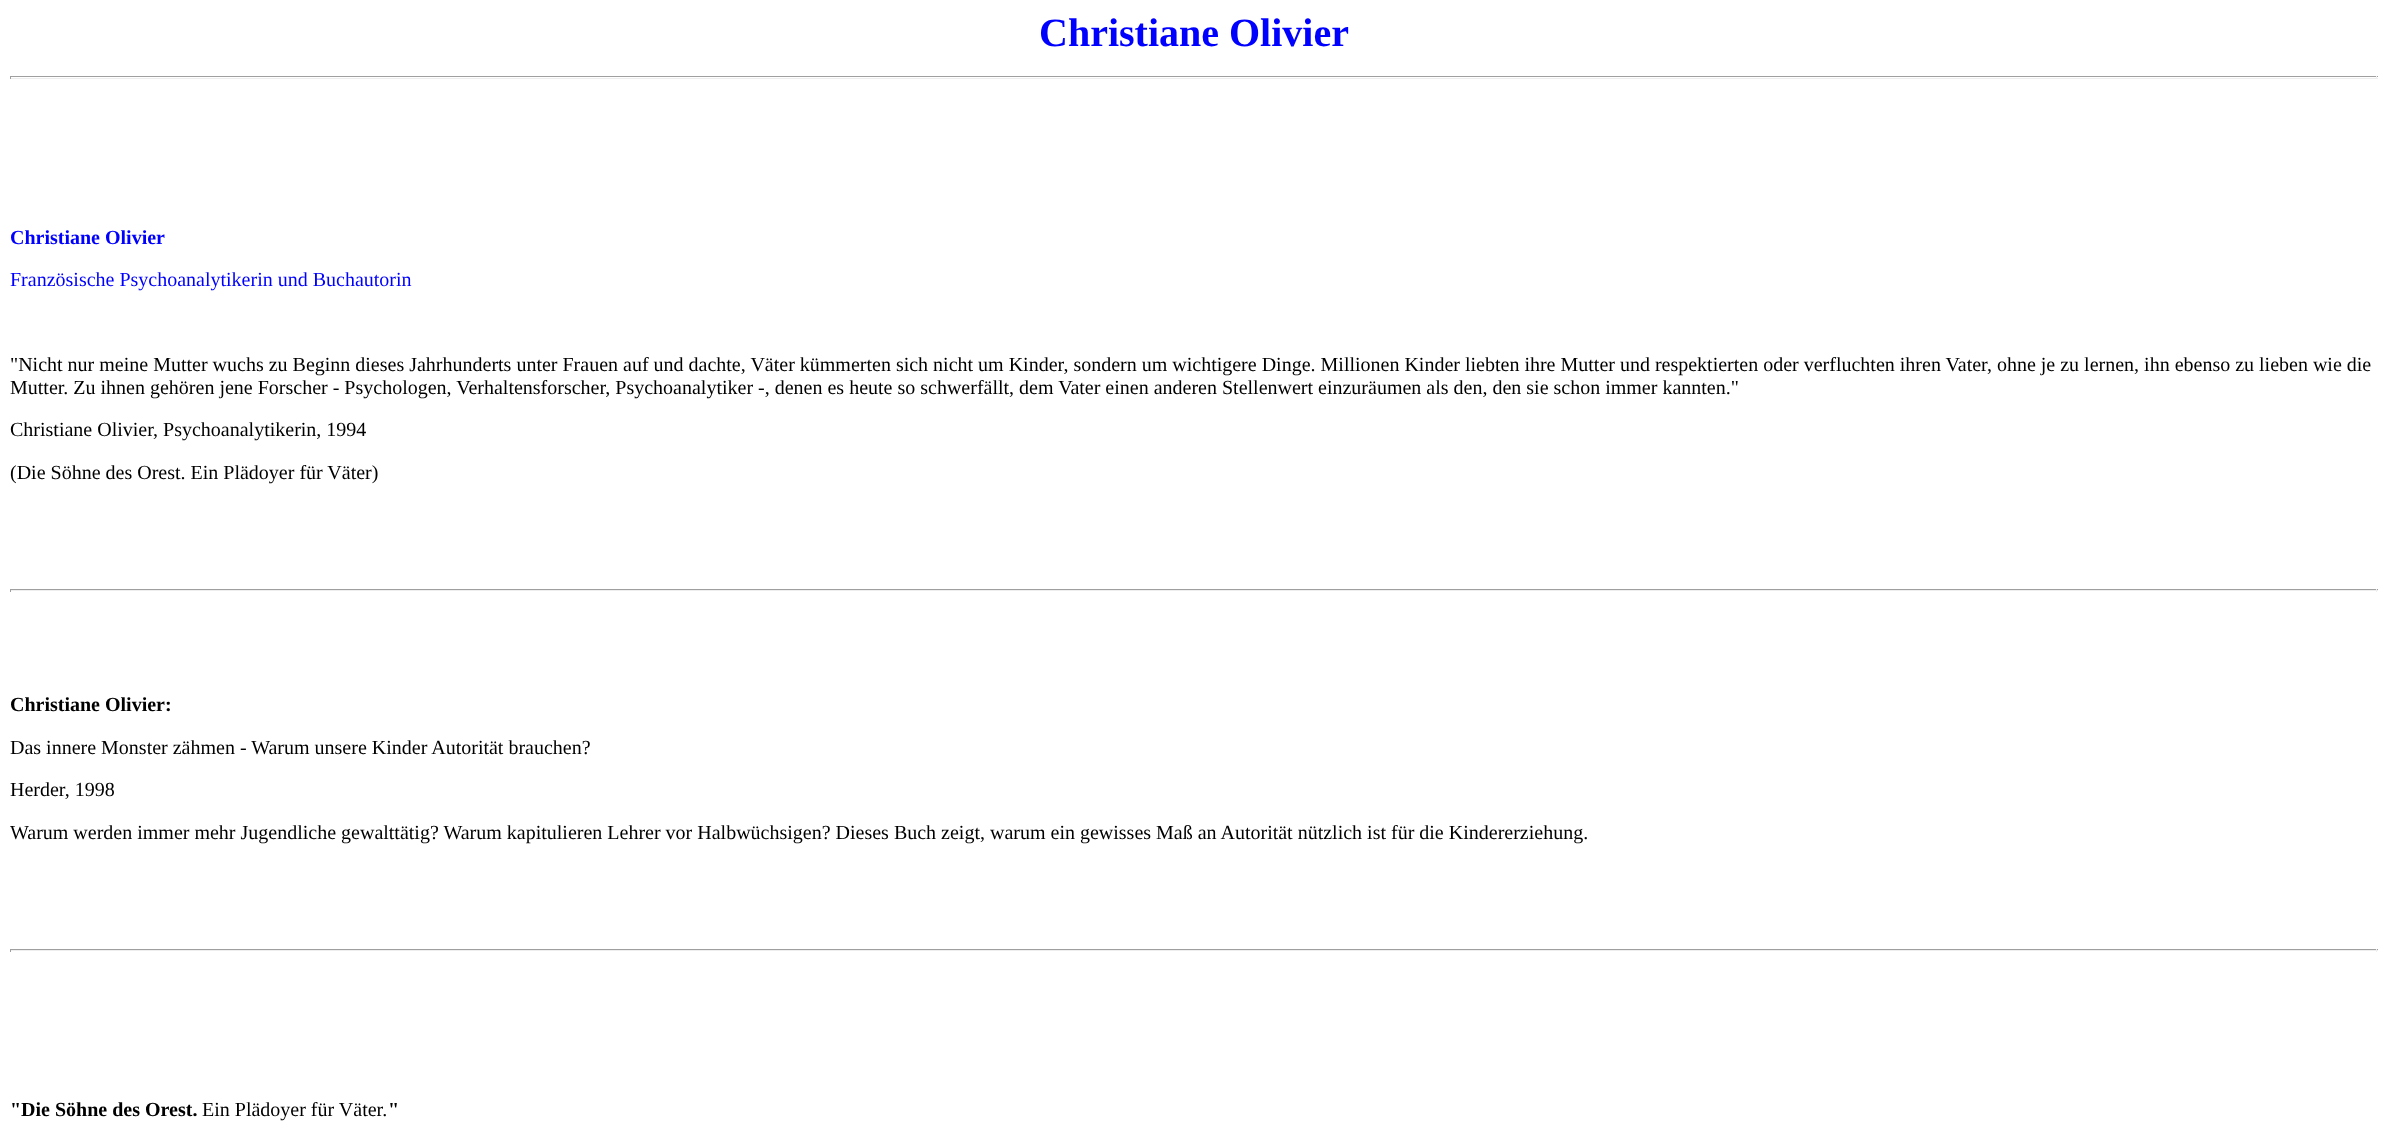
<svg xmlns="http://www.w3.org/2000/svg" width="2387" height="1136">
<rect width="100%" height="100%" fill="#fff"/>
<text x="1039" y="46" style="font-family:Liberation Serif;font-size:40px;font-weight:bold;fill:#00f">Christiane Olivier</text>
<rect x="10" y="76" width="2368" height="1" fill="#9f9f9f"/>
<rect x="2376" y="76" width="1" height="3" fill="#eee"/>
<rect x="10" y="78" width="2368" height="1" fill="#eee"/>
<rect x="10" y="76" width="1" height="3" fill="#9f9f9f"/>
<text x="10" y="244" style="font-family:Liberation Serif;font-size:20px;font-weight:bold;fill:#00f">Christiane Olivier</text>
<text x="10" y="286" style="font-family:Liberation Serif;font-size:20px;fill:#00f">Französische Psychoanalytikerin und Buchautorin</text>
<text x="10" y="371" style="font-family:Liberation Serif;font-size:20px;fill:#000">"Nicht nur meine Mutter wuchs zu Beginn dieses Jahrhunderts unter Frauen auf und dachte, Väter kümmerten sich nicht um Kinder, sondern um wichtigere Dinge. Millionen Kinder liebten ihre Mutter und respektierten oder verfluchten ihren Vater, ohne je zu lernen, ihn ebenso zu lieben wie die</text>
<text x="10" y="394" style="font-family:Liberation Serif;font-size:20px;fill:#000">Mutter. Zu ihnen gehören jene Forscher - Psychologen, Verhaltensforscher, Psychoanalytiker -, denen es heute so schwerfällt, dem Vater einen anderen Stellenwert einzuräumen als den, den sie schon immer kannten."</text>
<text x="10" y="436" style="font-family:Liberation Serif;font-size:20px;fill:#000">Christiane Olivier, Psychoanalytikerin, 1994</text>
<text x="10" y="479" style="font-family:Liberation Serif;font-size:20px;fill:#000">(Die Söhne des Orest. Ein Plädoyer für Väter)</text>
<rect x="10" y="589" width="2368" height="1" fill="#9f9f9f"/>
<rect x="2376" y="589" width="1" height="3" fill="#eee"/>
<rect x="10" y="590" width="2368" height="1" fill="#eee"/>
<rect x="10" y="589" width="1" height="3" fill="#9f9f9f"/>
<text x="10" y="711" style="font-family:Liberation Serif;font-size:20px;font-weight:bold;fill:#000">Christiane Olivier:</text>
<text x="10" y="754" style="font-family:Liberation Serif;font-size:20px;fill:#000">Das innere Monster zähmen - Warum unsere Kinder Autorität brauchen?</text>
<text x="10" y="796" style="font-family:Liberation Serif;font-size:20px;fill:#000">Herder, 1998</text>
<text x="10" y="839" style="font-family:Liberation Serif;font-size:20px;fill:#000">Warum werden immer mehr Jugendliche gewalttätig? Warum kapitulieren Lehrer vor Halbwüchsigen? Dieses Buch zeigt, warum ein gewisses Maß an Autorität nützlich ist für die Kindererziehung.</text>
<rect x="10" y="949" width="2368" height="1" fill="#9f9f9f"/>
<rect x="2376" y="949" width="1" height="3" fill="#eee"/>
<rect x="10" y="950" width="2368" height="1" fill="#eee"/>
<rect x="10" y="949" width="1" height="3" fill="#9f9f9f"/>
<text x="10" y="1116" style="font-family:Liberation Serif;font-size:20px;font-weight:bold;fill:#000">"Die Söhne des Orest.</text>
<text x="202" y="1116" style="font-family:Liberation Serif;font-size:20px;fill:#000">Ein Plädoyer für Väter.</text>
<text x="388" y="1116" style="font-family:Liberation Serif;font-size:20px;font-weight:bold;fill:#000">"</text>
</svg>
